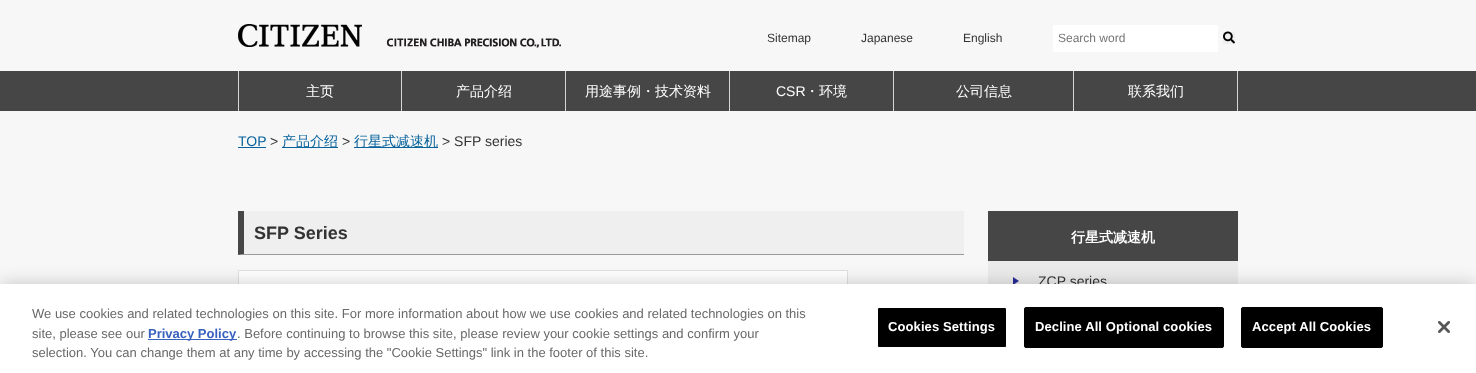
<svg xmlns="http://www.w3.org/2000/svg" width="1476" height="373">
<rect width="100%" height="100%" fill="#f7f7f7"/>
<image x="238" y="24" width="124" height="23" href="media/1.png"/>
<image x="387" y="38" width="174" height="10" href="media/2.png"/>
<text x="767" y="42" style="font-family:Liberation Sans;font-size:12px;fill:#333">Sitemap</text>
<text x="861" y="42" style="font-family:Liberation Sans;font-size:12px;fill:#333">Japanese</text>
<text x="963" y="42" style="font-family:Liberation Sans;font-size:12px;fill:#333">English</text>
<rect x="1053" y="25" width="165" height="27" fill="#fff"/>
<text x="1058" y="42" style="font-family:Liberation Sans;font-size:12px;fill:#757575">Search word</text>
<rect x="1223" y="32" width="12" height="12" fill="#efefef"/>
<image x="1223" y="31" width="12" height="13" href="media/3.png"/>
<rect y="71" width="1476" height="40" fill="#464646"/>
<rect x="401" y="71" width="1" height="40" fill="#d6d6d6"/>
<rect x="238" y="71" width="1" height="40" fill="#d6d6d6"/>
<text x="306" y="96" style="font-family:WenQuanYi Zen Hei;font-size:14px;font-weight:500;fill:#fff">主页</text>
<rect x="565" y="71" width="1" height="40" fill="#d6d6d6"/>
<text x="456" y="96" style="font-family:WenQuanYi Zen Hei;font-size:14px;font-weight:500;fill:#fff">产品介绍</text>
<rect x="729" y="71" width="1" height="40" fill="#d6d6d6"/>
<text x="585" y="96" style="font-family:WenQuanYi Zen Hei;font-size:14px;font-weight:500;fill:#fff">用途事例・技术资料</text>
<rect x="893" y="71" width="1" height="40" fill="#d6d6d6"/>
<text x="776" y="96" style="font-family:Liberation Sans;font-size:14px;fill:#fff">CSR</text>
<text x="805" y="96" style="font-family:WenQuanYi Zen Hei;font-size:14px;font-weight:500;fill:#fff">・环境</text>
<rect x="1073" y="71" width="1" height="40" fill="#d6d6d6"/>
<text x="956" y="96" style="font-family:WenQuanYi Zen Hei;font-size:14px;font-weight:500;fill:#fff">公司信息</text>
<rect x="1237" y="71" width="1" height="40" fill="#d6d6d6"/>
<text x="1128" y="96" style="font-family:WenQuanYi Zen Hei;font-size:14px;font-weight:500;fill:#fff">联系我们</text>
<text x="238" y="146" style="font-family:Liberation Sans;font-size:14px;fill:#07629c">TOP</text>
<rect x="238" y="147" width="28" height="1" fill="#07629c"/>
<text x="270" y="146" style="font-family:Liberation Sans;font-size:14px;fill:#333">&gt;</text>
<rect x="282" y="147" width="56" height="1" fill="#07629c"/>
<text x="282" y="146" style="font-family:WenQuanYi Zen Hei;font-size:14px;font-weight:500;fill:#07629c">产品介绍</text>
<text x="342" y="146" style="font-family:Liberation Sans;font-size:14px;fill:#333">&gt;</text>
<rect x="354" y="147" width="84" height="1" fill="#07629c"/>
<text x="354" y="146" style="font-family:WenQuanYi Zen Hei;font-size:14px;font-weight:500;fill:#07629c">行星式减速机</text>
<text x="442" y="146" style="font-family:Liberation Sans;font-size:14px;fill:#333">&gt; SFP series</text>
<rect x="238" y="211" width="726" height="44" fill="#efefef"/>
<path d="M964 255h-726l6-1h720z" fill="#999"/>
<path d="M238 255v-44h6v43z" fill="#464646"/>
<text x="254" y="239" style="font-family:Liberation Sans;font-size:18px;font-weight:bold;fill:#333">SFP Series</text>
<rect x="238.5" y="270.5" width="609" height="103" fill="none" stroke="#e1e1e1"/>
<image x="239" y="271" width="608" height="13" href="media/4.png"/>
<rect x="988" y="211" width="250" height="50" fill="#464646"/>
<text x="1071" y="242" style="font-family:WenQuanYi Zen Hei;font-size:14px;font-weight:bold;fill:#fff">行星式减速机</text>
<rect x="988" y="261" width="250" height="23" fill="#ebebeb"/>
<image x="1013" y="277" width="6" height="7" href="media/5.png"/>
<text x="1038" y="286" style="font-family:Liberation Sans;font-size:14px;fill:#333">ZCP series</text>
<rect y="284" width="1476" height="89" fill="#00000033" filter="blur(9px)"/>
<rect y="284" width="1476" height="89" fill="#fff"/>
<text x="32" y="318" style="font-family:Liberation Sans;font-size:13px;fill:#696969">We use cookies and related technologies on this site. For more information about how we use cookies and related technologies on this</text>
<text x="32" y="338" style="font-family:Liberation Sans;font-size:13px;fill:#696969">site, please see our</text>
<rect x="148" y="339" width="89" height="1" fill="#3860be"/>
<text x="148" y="338" style="font-family:Liberation Sans;font-size:13px;font-weight:bold;fill:#3860be">Privacy Policy</text>
<text x="237" y="338" style="font-family:Liberation Sans;font-size:13px;fill:#696969">. Before continuing to browse this site, please review your cookie settings and confirm your</text>
<text x="32" y="357" style="font-family:Liberation Sans;font-size:13px;fill:#696969">selection. You can change them at any time by accessing the "Cookie Settings" link in the footer of this site.</text>
<rect x="877.5" y="307.5" width="129" height="40" rx="1.5" fill="#000" stroke="#fff"/>
<text x="888" y="331" style="font-family:Liberation Sans;font-size:13px;font-weight:bold;letter-spacing:0.1px;fill:#fff">Cookies Settings</text>
<rect x="1024.5" y="307.5" width="199" height="40" rx="1.5" fill="#000" stroke="#000"/>
<text x="1035" y="331" style="font-family:Liberation Sans;font-size:13px;font-weight:bold;letter-spacing:0.1px;fill:#fff">Decline All Optional cookies</text>
<rect x="1241.5" y="307.5" width="141" height="40" rx="1.5" fill="#000" stroke="#000"/>
<text x="1252" y="331" style="font-family:Liberation Sans;font-size:13px;font-weight:bold;letter-spacing:0.1px;fill:#fff">Accept All Cookies</text>
<image x="1438" y="321" width="12" height="12" href="media/6.png"/>
</svg>
